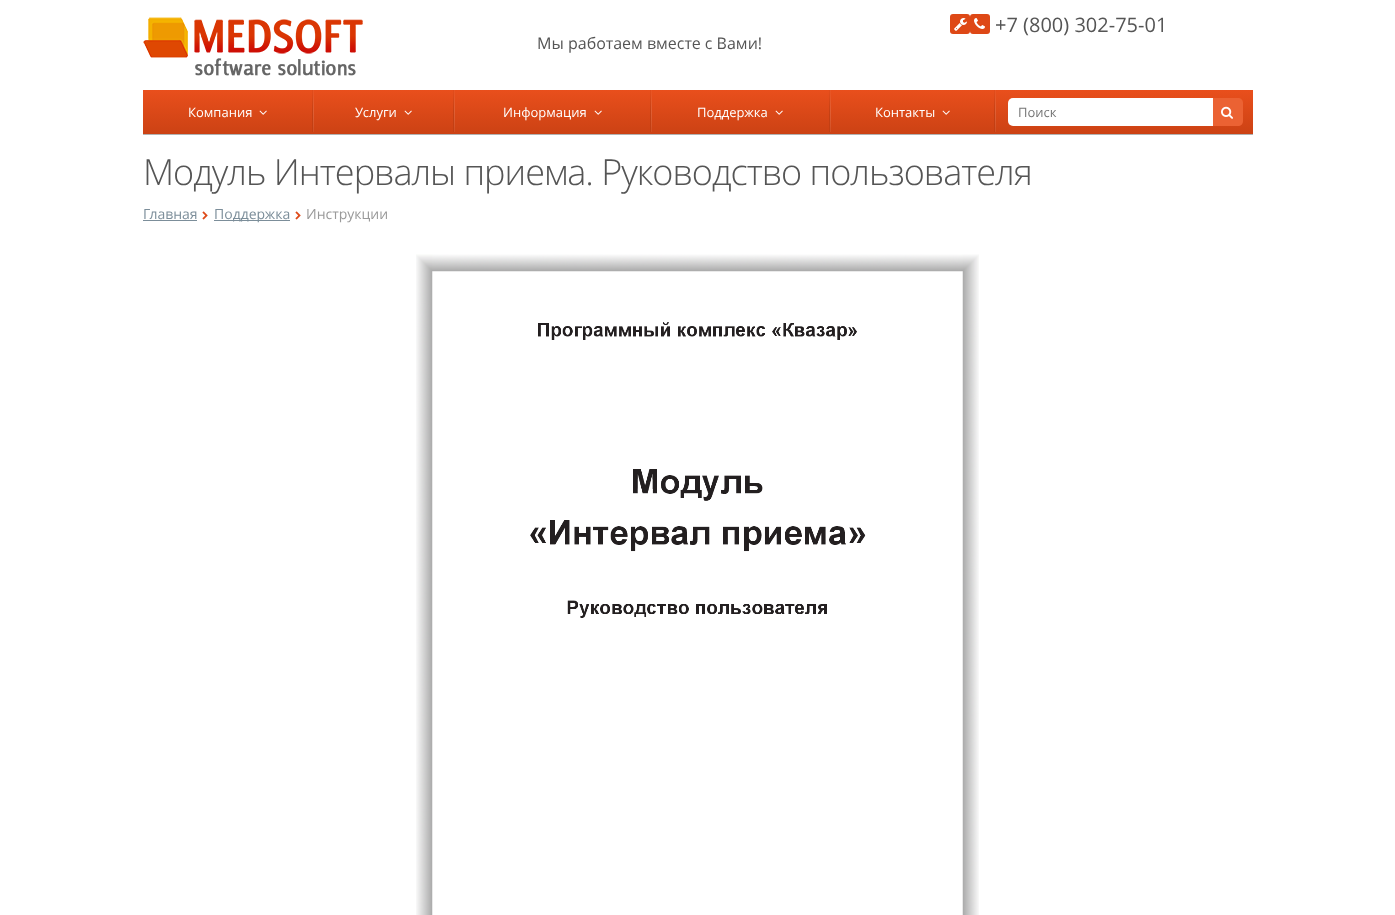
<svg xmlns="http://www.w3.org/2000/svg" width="1395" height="915">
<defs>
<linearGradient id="g1" gradientUnits="userSpaceOnUse" x1="698" y1="90" x2="698" y2="134"><stop offset="0" stop-color="#e94f1c"/><stop offset="1" stop-color="#cc4214"/></linearGradient>
</defs>
<rect width="100%" height="100%" fill="#fff"/>
<image x="143" y="17" width="220" height="59" href="media/1.png"/>
<rect x="950" y="14" width="20" height="20" rx="3" fill="#de4816"/>
<image x="954" y="18" width="13" height="13" href="media/2.png"/>
<rect x="970" y="14" width="20" height="20" rx="3" fill="#de4816"/>
<image x="974" y="18" width="11" height="11" href="media/3.png"/>
<text x="995" y="32" style="font-family:Open Sans;font-size:20px;fill:#555">+7 (800) 302-75-01</text>
<text x="537" y="49" style="font-family:Open Sans;font-size:16px;fill:#555">Мы работаем вместе с Вами!</text>
<rect x="143" y="91" width="1110" height="44" fill="#0000004d" filter="blur(0.5px)"/>
<rect x="143" y="90" width="1110" height="44" fill="url(#g1)"/>
<text x="188" y="117" style="font-family:Open Sans;font-size:13px;fill:#fff">Компания</text>
<image x="259" y="110" width="8" height="5" href="media/4.png"/>
<image x="312" y="90" width="2" height="42" href="media/5.png"/>
<text x="355" y="117" style="font-family:Open Sans;font-size:13px;fill:#fff">Услуги</text>
<image x="404" y="110" width="8" height="5" href="media/4.png"/>
<image x="453" y="90" width="2" height="42" href="media/5.png"/>
<text x="503" y="117" style="font-family:Open Sans;font-size:13px;fill:#fff">Информация</text>
<image x="594" y="110" width="8" height="5" href="media/4.png"/>
<image x="650" y="90" width="2" height="42" href="media/5.png"/>
<text x="697" y="117" style="font-family:Open Sans;font-size:13px;fill:#fff">Поддержка</text>
<image x="775" y="110" width="8" height="5" href="media/4.png"/>
<image x="829" y="90" width="2" height="42" href="media/5.png"/>
<text x="875" y="117" style="font-family:Open Sans;font-size:13px;fill:#fff">Контакты</text>
<image x="942" y="110" width="8" height="5" href="media/4.png"/>
<image x="994" y="90" width="2" height="42" href="media/5.png"/>
<rect x="1008" y="98" width="232" height="28" rx="5" fill="#fff"/>
<text x="1018" y="117" style="font-family:Open Sans;font-size:13px;fill:#757575">Поиск</text>
<path d="M1213 98h25c3 0 5 2 5 5v18c0 3-2 5-5 5h-25z" fill="#eb6233"/>
<image x="1221" y="106" width="12" height="13" href="media/6.png"/>
<text x="143" y="185" style="font-family:Open Sans;font-size:36px;font-weight:300;letter-spacing:-1px;fill:#555">Модуль Интервалы приема. Руководство пользователя</text>
<text x="143" y="219" style="font-family:Open Sans;font-size:14px;fill:#7c8e9a">Главная</text>
<rect x="143" y="220" width="54" height="1" fill="#7c8e9a"/>
<image x="202" y="211" width="6" height="9" href="media/7.png"/>
<rect x="214" y="220" width="76" height="1" fill="#7c8e9a"/>
<text x="214" y="219" style="font-family:Open Sans;font-size:14px;fill:#7c8e9a">Поддержка</text>
<image x="295" y="211" width="6" height="9" href="media/7.png"/>
<text x="306" y="219" style="font-family:Open Sans;font-size:14px;fill:#9a9a9a">Инструкции</text>
<image x="416" y="254" width="563" height="661" href="media/8.png"/>
</svg>
